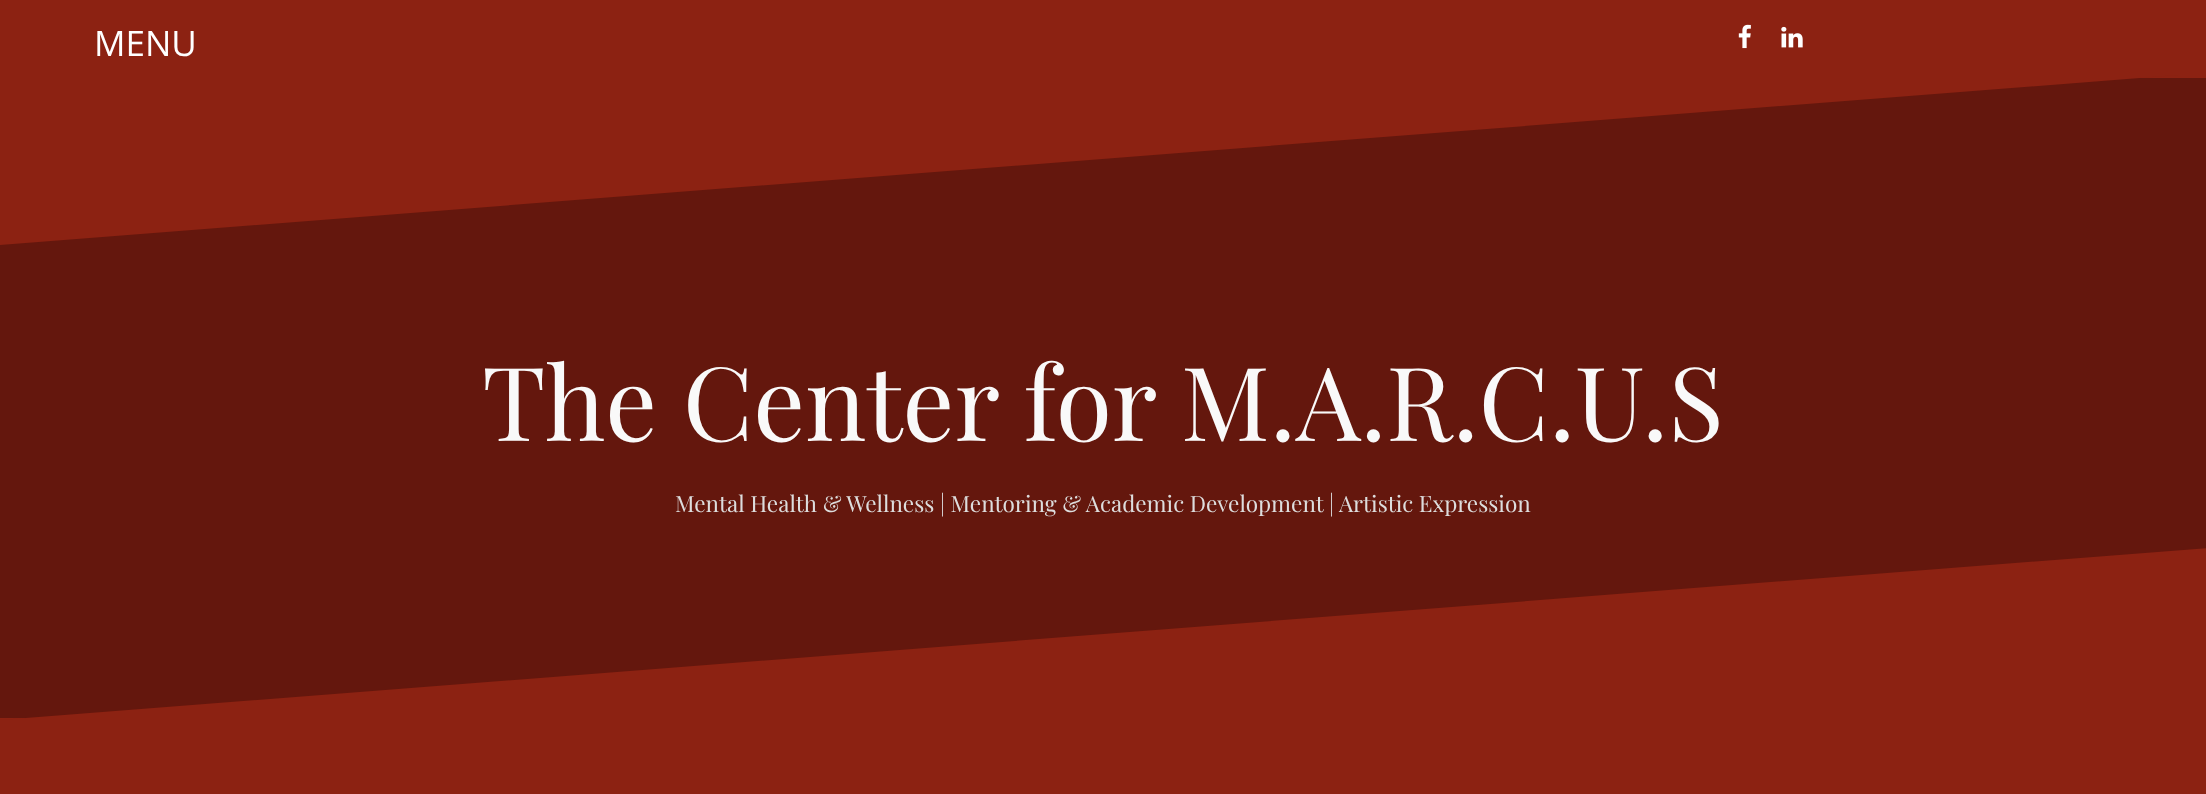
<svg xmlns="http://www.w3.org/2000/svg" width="2206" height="794">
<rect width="100%" height="100%" fill="#8c2212"/>
<text x="94" y="56" style="font-family:Open Sans;font-size:35px;fill:#fff">MENU</text>
<image x="1738" y="24" width="13" height="25" href="media/1.png"/>
<image x="1781" y="26" width="22" height="22" href="media/2.png"/>
<rect y="78" width="2206" height="640" fill="#64170d"/>
<path d="M0 245v-170h2178" fill="#8c2212"/>
<text x="482" y="441" style="font-family:Playfair Display;font-size:102.5px;fill:#f9f9f9">The Center for M.A.R.C.U.S</text>
<text x="675" y="512" style="font-family:Playfair Display;font-size:22.5px;fill:#ddd">Mental Health &amp; Wellness | Mentoring &amp; Academic Development | Artistic Expression</text>
<path d="M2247 545v175h-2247" fill="#8c2212"/>
</svg>
